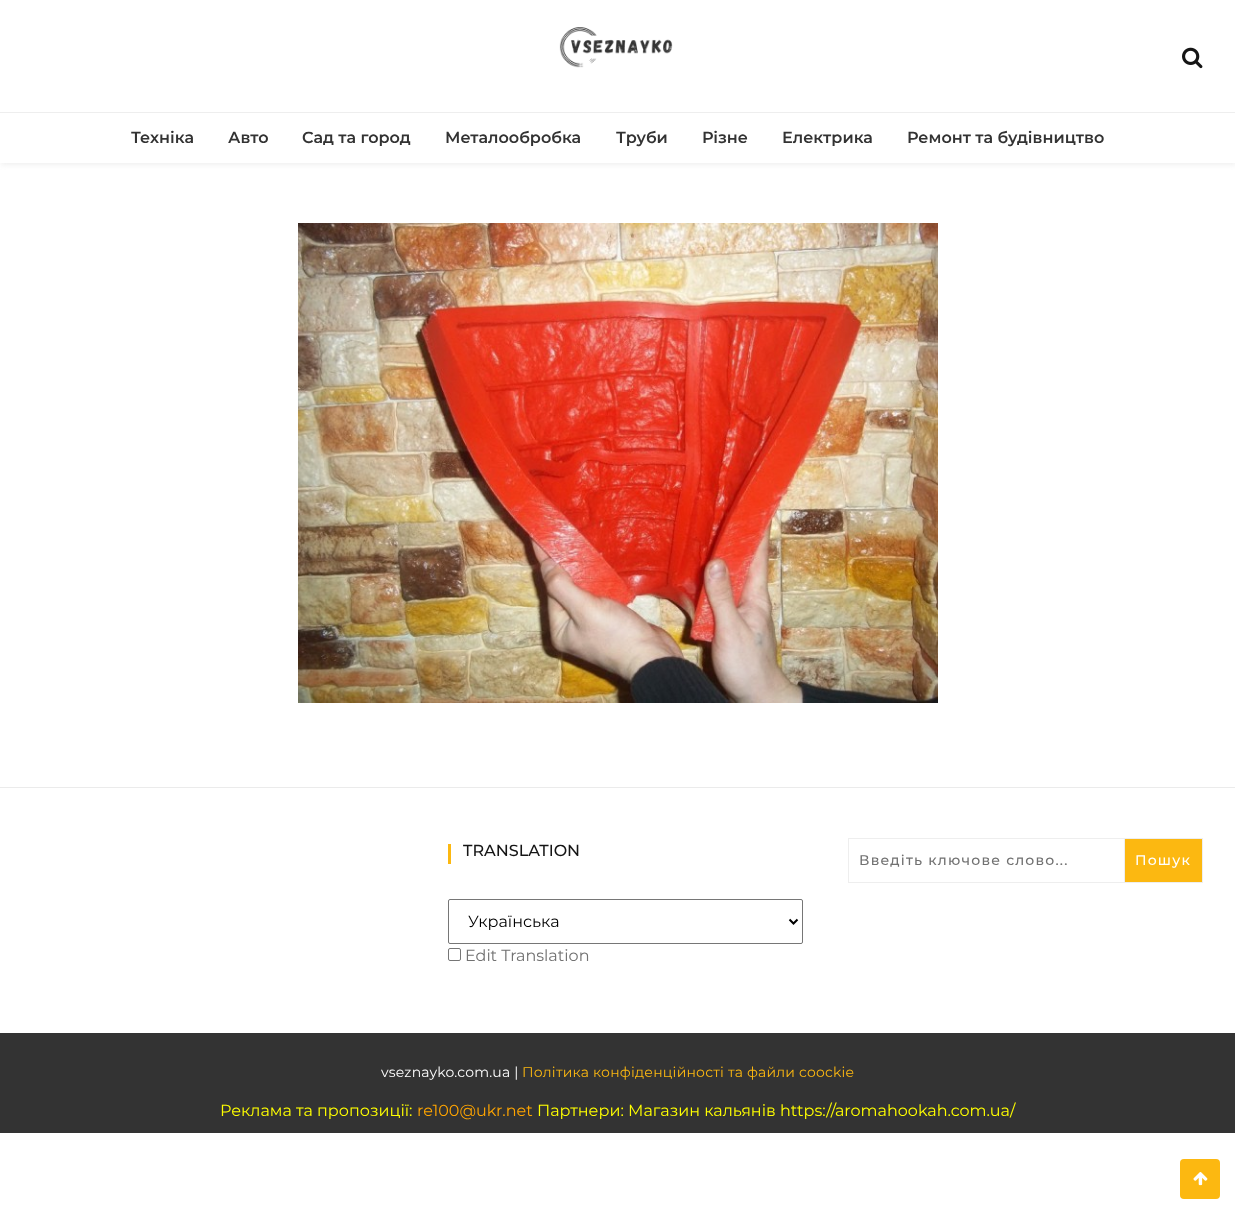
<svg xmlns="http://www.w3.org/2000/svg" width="1235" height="1231">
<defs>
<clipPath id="clip1"><rect x="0" y="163" width="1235" height="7"/></clipPath>
</defs>
<rect width="100%" height="100%" fill="#fff"/>
<g clip-path="url(#clip1)">
<rect x="1" y="2" width="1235" height="163" fill="#ebebebbf" filter="blur(2.5px)"/>
</g>
<image x="559" y="27" width="114" height="41" href="media/1.png"/>
<image x="1182" y="47" width="21" height="22" href="media/2.png"/>
<rect y="112" width="1235" height="1" fill="#eee"/>
<text x="131" y="143" style="font-family:Montserrat;font-size:16px;font-weight:600;fill:#333">Техніка</text>
<text x="228" y="143" style="font-family:Montserrat;font-size:16px;font-weight:600;fill:#333">Авто</text>
<text x="302" y="143" style="font-family:Montserrat;font-size:16px;font-weight:600;fill:#333">Сад та город</text>
<text x="445" y="143" style="font-family:Montserrat;font-size:16px;font-weight:600;fill:#333">Металообробка</text>
<text x="616" y="143" style="font-family:Montserrat;font-size:16px;font-weight:600;fill:#333">Труби</text>
<text x="702" y="143" style="font-family:Montserrat;font-size:16px;font-weight:600;fill:#333">Різне</text>
<text x="782" y="143" style="font-family:Montserrat;font-size:16px;font-weight:600;fill:#333">Електрика</text>
<text x="907" y="143" style="font-family:Montserrat;font-size:16px;font-weight:600;fill:#333">Ремонт та будівництво</text>
<image x="298" y="223" width="640" height="480" href="media/3.png"/>
<rect y="787" width="1235" height="1" fill="#ebebeb"/>
<rect x="448" y="844" width="3" height="20" fill="#fcb811"/>
<text x="463" y="856" style="font-family:Montserrat;font-size:16px;font-weight:500;fill:#151515">TRANSLATION</text>
<rect x="448.5" y="899.5" width="354" height="44" rx="1.5" fill="none" stroke="#767676"/>
<path d="M789.5 919.5l4 4l4-4" fill="none" stroke="#000" stroke-width="2"/>
<text x="468" y="927" style="font-family:Montserrat;font-size:16px;fill:#000">Українська</text>
<rect x="448.5" y="948.5" width="12" height="12" rx="1.5" fill="none" stroke="#767676"/>
<text x="465" y="961" style="font-family:Montserrat;font-size:16px;fill:#717171">Edit Translation</text>
<rect x="848.5" y="838.5" width="354" height="44" fill="none" stroke="#eee"/>
<text x="859" y="865" style="font-family:Montserrat;font-size:14px;font-weight:500;letter-spacing:1.2px;fill:#717171">Введіть ключове слово...</text>
<rect x="1124.5" y="838.5" width="78" height="44" fill="#fcb811" stroke="#eee"/>
<text x="1135" y="865" style="font-family:Montserrat;font-size:14px;font-weight:500;letter-spacing:1.2px;fill:#fff">Пошук</text>
<rect y="1033" width="1235" height="100" fill="#333"/>
<text x="381" y="1077" style="font-family:Montserrat;font-size:14px;letter-spacing:0.2px;fill:#fff">vseznayko.com.ua |</text>
<text x="522" y="1077" style="font-family:Montserrat;font-size:14px;letter-spacing:0.2px;fill:#fcb811">Політика конфіденційності та файли coockie</text>
<text x="220" y="1116" style="font-family:Montserrat;font-size:16px;fill:#ff0">Реклама та пропозиції:</text>
<text x="417" y="1116" style="font-family:Montserrat;font-size:16px;fill:#ffa500">re100@ukr.net</text>
<text x="537" y="1116" style="font-family:Montserrat;font-size:16px;fill:#ff0">Партнери: Магазин кальянів https://aromahookah.com.ua/</text>
<rect x="1180" y="1159" width="40" height="40" rx="4" fill="#fcb811"/>
<image x="1193" y="1172" width="15" height="14" href="media/4.png"/>
</svg>
